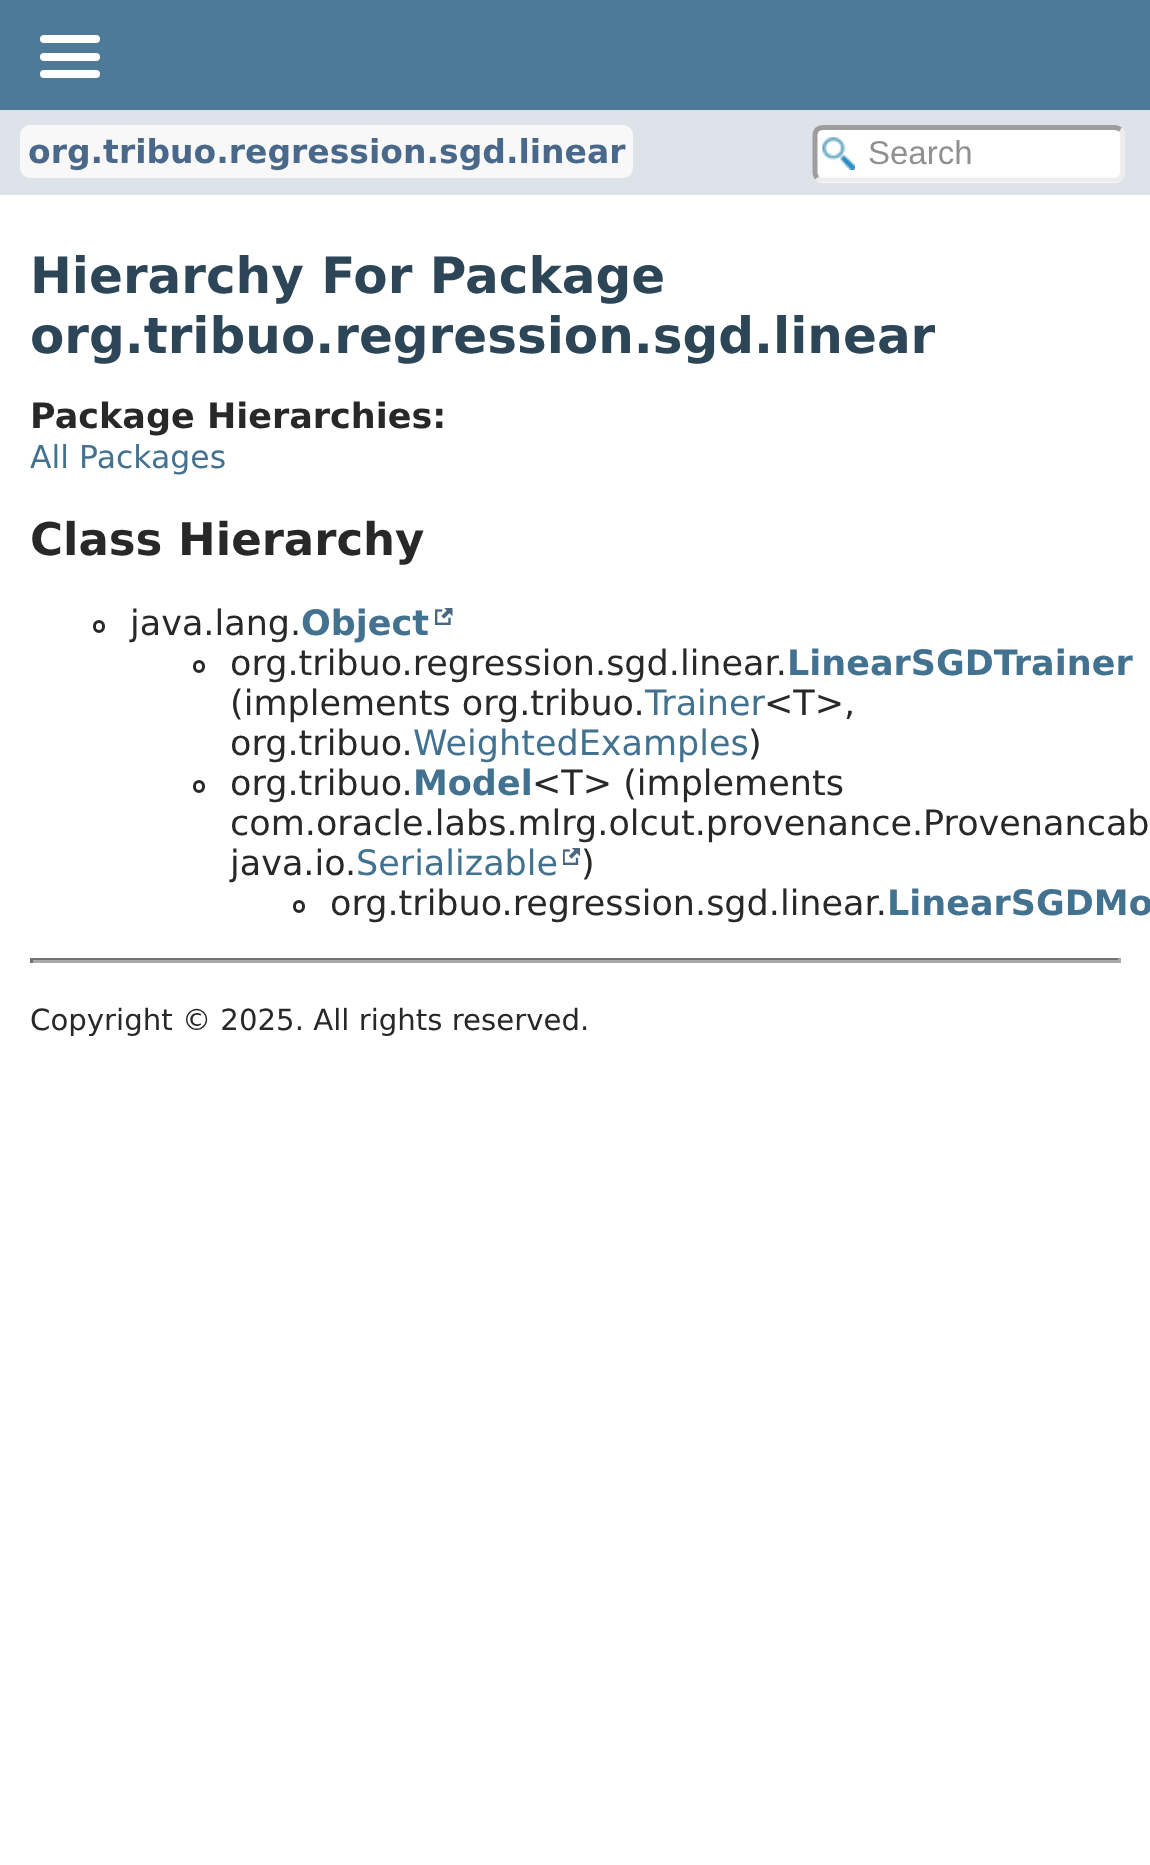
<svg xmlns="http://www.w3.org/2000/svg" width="1150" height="1865">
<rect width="100%" height="100%" fill="#fff"/>
<rect width="1150" height="110" fill="#4d7a97"/>
<rect x="40" y="35" width="60" height="8" rx="4" fill="#fff"/>
<rect x="40" y="53" width="60" height="8" rx="4" fill="#fff"/>
<rect x="40" y="70" width="60" height="8" rx="4" fill="#fff"/>
<rect y="110" width="1150" height="85" fill="#dee3e9"/>
<rect x="20" y="125" width="613" height="53" rx="10" fill="#f8f8f8"/>
<text x="28" y="163" style="font-family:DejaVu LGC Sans;font-size:33px;font-weight:bold;fill:#4a698a">org.tribuo.regression.sgd.linear</text>
<rect x="813" y="125" width="312" height="58" rx="10" fill="#fff"/>
<image x="822" y="137" width="33" height="33" href="media/1.png"/>
<path d="M1120.5 129.5c1 1.5 2 3.5 2 5.5v37.5c0 2-1 4-2 5.5c-1.5 1-3.5 2-5.5 2h-292.5c-2 0-4-1-5.5-2" fill="none" stroke="#ededed" stroke-width="5"/>
<path d="M817 178c-1-1.5-2-3.5-2-5.5v-37.5c0-2 1-4 2-5.5c1.5-1 3.5-2 5.5-2h292.5c2 0 4 1 5.5 2" fill="none" stroke="#9e9e9e" stroke-width="5"/>
<text x="868" y="164" style="font-family:Liberation Sans;font-size:33px;fill:#909090">Search</text>
<text x="30" y="293" style="font-family:DejaVu LGC Sans;font-size:50px;font-weight:bold;fill:#2c4557">Hierarchy For Package</text>
<text x="30" y="353" style="font-family:DejaVu LGC Sans;font-size:50px;font-weight:bold;fill:#2c4557">org.tribuo.regression.sgd.linear</text>
<text x="30" y="428" style="font-family:DejaVu LGC Sans;font-size:35px;font-weight:bold;fill:#282828">Package Hierarchies:</text>
<text x="30" y="468" style="font-family:DejaVu LGC Sans;font-size:31.5px;fill:#437291">All Packages</text>
<text x="30" y="555" style="font-family:DejaVu LGC Sans;font-size:45px;font-weight:bold;fill:#282828">Class Hierarchy</text>
<rect x="94.5" y="621.5" width="9" height="10" rx="4.5" fill="none" stroke="#282828" stroke-width="3"/>
<text x="130" y="635" style="font-family:DejaVu LGC Sans;font-size:35px;fill:#282828">java.lang.</text>
<text x="301" y="635" style="font-family:DejaVu LGC Sans;font-size:35px;font-weight:bold;fill:#437291">Object</text>
<image x="435" y="608" width="18" height="17" href="media/2.png"/>
<rect x="194.5" y="661.5" width="9" height="10" rx="4.5" fill="none" stroke="#282828" stroke-width="3"/>
<text x="230" y="675" style="font-family:DejaVu LGC Sans;font-size:35px;fill:#282828">org.tribuo.regression.sgd.linear.</text>
<text x="787" y="675" style="font-family:DejaVu LGC Sans;font-size:35px;font-weight:bold;fill:#437291">LinearSGDTrainer</text>
<text x="230" y="715" style="font-family:DejaVu LGC Sans;font-size:35px;fill:#282828">(implements org.tribuo.</text>
<text x="645" y="715" style="font-family:DejaVu LGC Sans;font-size:35px;fill:#437291">Trainer</text>
<text x="764" y="715" style="font-family:DejaVu LGC Sans;font-size:35px;fill:#282828">&lt;T&gt;,</text>
<text x="230" y="755" style="font-family:DejaVu LGC Sans;font-size:35px;fill:#282828">org.tribuo.</text>
<text x="413" y="755" style="font-family:DejaVu LGC Sans;font-size:35px;fill:#437291">WeightedExamples</text>
<text x="748" y="755" style="font-family:DejaVu LGC Sans;font-size:35px;fill:#282828">)</text>
<rect x="194.5" y="781.5" width="9" height="10" rx="4.5" fill="none" stroke="#282828" stroke-width="3"/>
<text x="230" y="795" style="font-family:DejaVu LGC Sans;font-size:35px;fill:#282828">org.tribuo.</text>
<text x="413" y="795" style="font-family:DejaVu LGC Sans;font-size:35px;font-weight:bold;fill:#437291">Model</text>
<text x="532" y="795" style="font-family:DejaVu LGC Sans;font-size:35px;fill:#282828">&lt;T&gt; (implements</text>
<text x="230" y="835" style="font-family:DejaVu LGC Sans;font-size:35px;fill:#282828">com.oracle.labs.mlrg.olcut.provenance.Provenancab</text>
<text x="230" y="875" style="font-family:DejaVu LGC Sans;font-size:35px;fill:#282828">java.io.</text>
<text x="356" y="875" style="font-family:DejaVu LGC Sans;font-size:35px;fill:#437291">Serializable</text>
<image x="563" y="848" width="17" height="17" href="media/3.png"/>
<text x="581" y="875" style="font-family:DejaVu LGC Sans;font-size:35px;fill:#282828">)</text>
<rect x="294.5" y="901.5" width="9" height="10" rx="4.5" fill="none" stroke="#282828" stroke-width="3"/>
<text x="330" y="915" style="font-family:DejaVu LGC Sans;font-size:35px;fill:#282828">org.tribuo.regression.sgd.linear.</text>
<text x="887" y="915" style="font-family:DejaVu LGC Sans;font-size:35px;font-weight:bold;fill:#437291">LinearSGDMo</text>
<rect x="30" y="958" width="1090" height="2" fill="#717171"/>
<rect x="1118" y="958" width="3" height="5" fill="#aaa"/>
<rect x="30" y="960" width="1090" height="3" fill="#aaa"/>
<rect x="30" y="958" width="3" height="5" fill="#717171"/>
<text x="30" y="1030" style="font-family:DejaVu LGC Sans;font-size:29.2px;fill:#282828">Copyright © 2025. All rights reserved.</text>
</svg>
